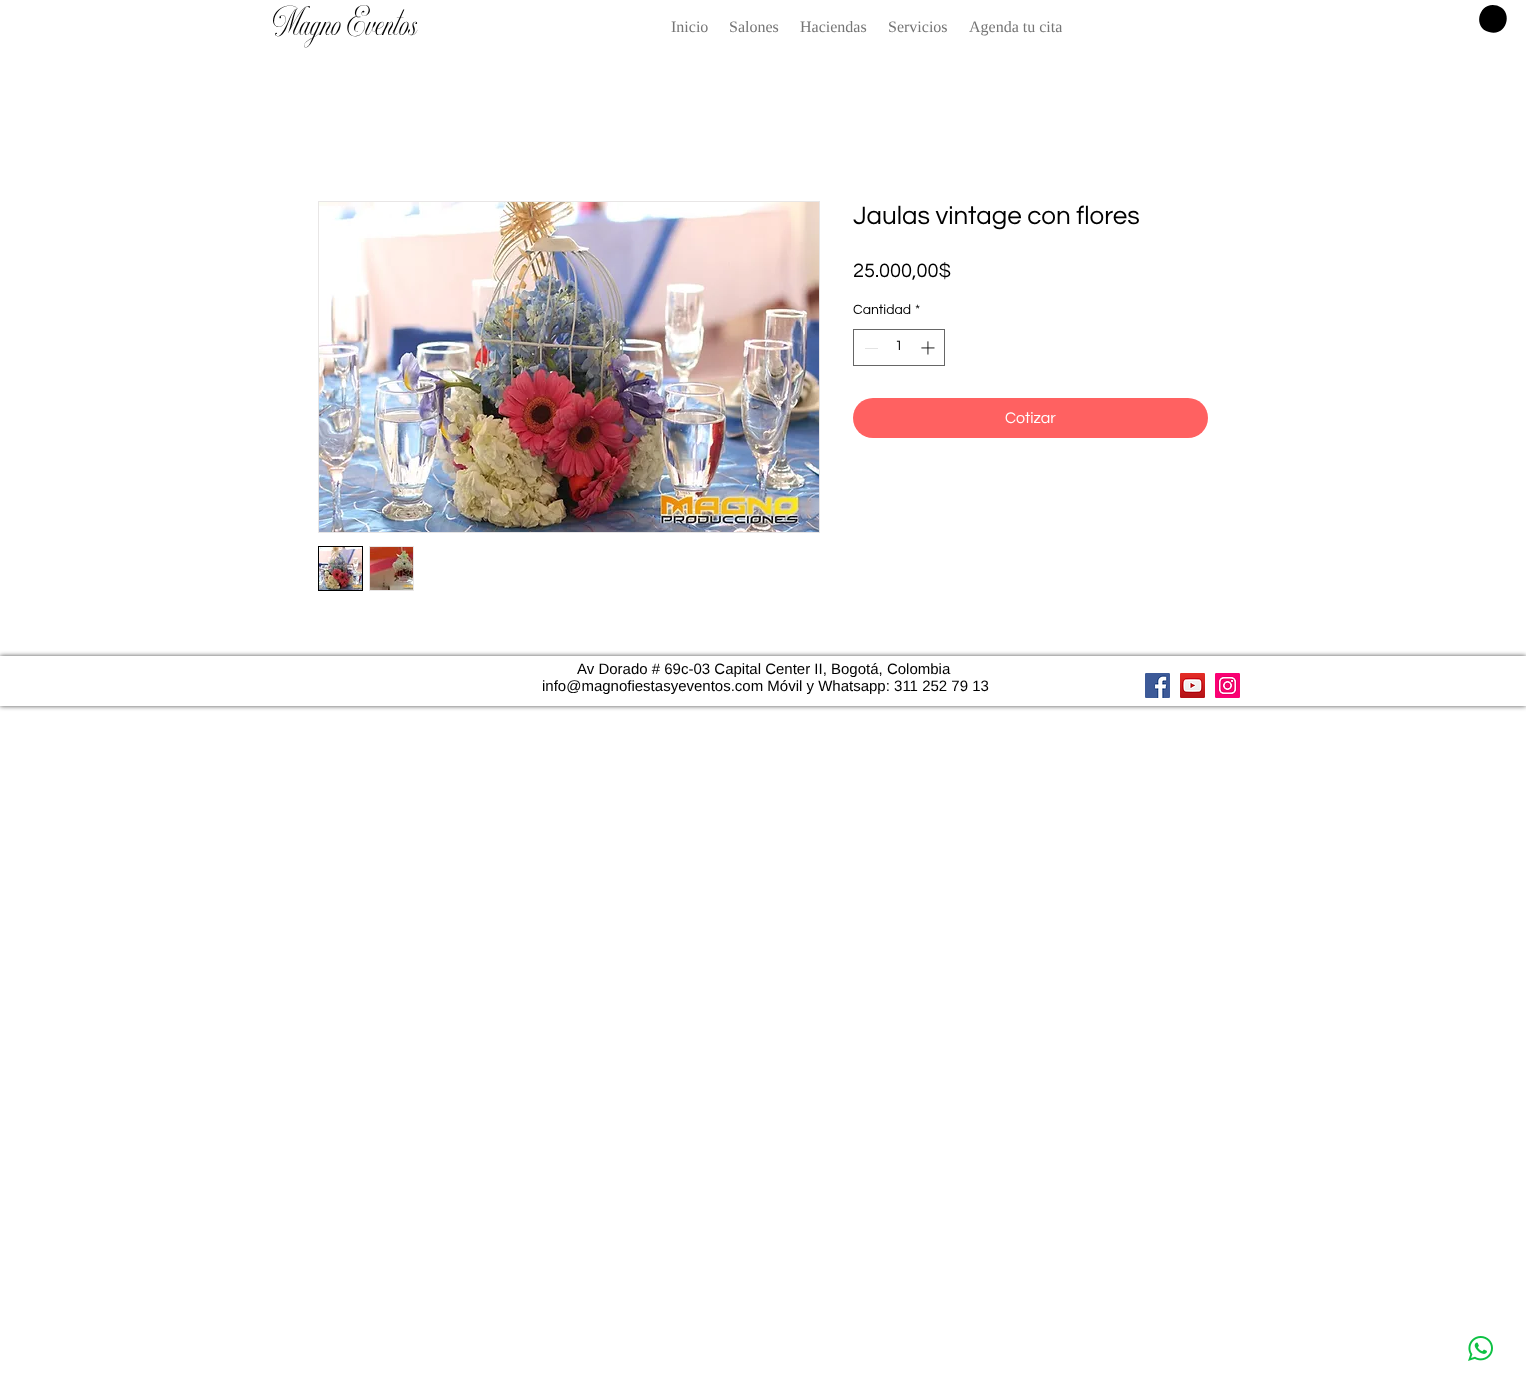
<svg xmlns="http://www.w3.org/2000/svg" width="1526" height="1390">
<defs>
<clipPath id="clip1"><path d="M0 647h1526v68h-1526zm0 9h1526v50h-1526z" clip-rule="evenodd"/></clipPath>
</defs>
<rect width="100%" height="100%" fill="#fff"/>
<text x="273" y="35" style="font-family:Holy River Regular;font-size:25px;fill:#000">Magno Eventos</text>
<text x="671" y="32" style="font-family:Liberation Serif;font-size:16px;fill:#757575">Inicio</text>
<text x="729" y="32" style="font-family:Liberation Serif;font-size:16px;fill:#757575">Salones</text>
<text x="800" y="32" style="font-family:Liberation Serif;font-size:16px;fill:#757575">Haciendas</text>
<text x="888" y="32" style="font-family:Liberation Serif;font-size:16px;fill:#757575">Servicios</text>
<text x="969" y="32" style="font-family:Liberation Serif;font-size:16px;fill:#757575">Agenda tu cita</text>
<path d="M1497 5.5c17.5 5.5 9.5 32-8 26.5c-17.5-5-9.5-31.5 8-26.5z" fill="#000"/>
<rect x="318.5" y="201.5" width="501" height="331" fill="none" stroke="#e8e6e6"/>
<image x="319" y="202" width="500" height="330" href="media/1.png"/>
<rect x="318.5" y="546.5" width="44" height="44" fill="none" stroke="#000"/>
<image x="319" y="547" width="43" height="43" href="media/2.png"/>
<rect x="369" y="546" width="45" height="45" fill="#e8e6e6"/>
<image x="370" y="547" width="43" height="43" href="media/3.png"/>
<text x="853" y="224" style="font-family:Questrial;font-size:26px;fill:#000">Jaulas vintage con flores</text>
<text x="853" y="277" style="font-family:Questrial;font-size:20px;fill:#000">25.000,00$</text>
<text x="853" y="314" style="font-family:Questrial;font-size:14px;fill:#000">Cantidad</text>
<text x="915" y="314" style="font-family:Questrial;font-size:14px;fill:#000">*</text>
<rect x="853.5" y="329.5" width="91" height="36" fill="none" stroke="#666"/>
<rect x="865" y="348" width="13" height="1" fill="#e3e3e3"/>
<text x="895" y="350" style="font-family:Questrial;font-size:14px;fill:#000">1</text>
<image x="921" y="341" width="14" height="14" href="media/4.png"/>
<rect x="853" y="398" width="355" height="40" rx="20" fill="#ff6161"/>
<text x="1005" y="423" style="font-family:Questrial;font-size:16px;fill:#fff">Cotizar</text>
<g clip-path="url(#clip1)">
<rect y="656" width="1526" height="50" fill="#000000b3" filter="blur(2.5px)"/>
</g>
<text x="577" y="674" style="font-family:Liberation Sans;font-size:15px;fill:#000">Av Dorado # 69c-03 Capital Center II, Bogotá, Colombia</text>
<text x="542" y="691" style="font-family:Liberation Sans;font-size:15px;fill:#000">info@magnofiestasyeventos.com Móvil y Whatsapp: 311 252 79 13</text>
<image x="1145" y="673" width="25" height="25" href="media/5.png"/>
<image x="1180" y="673" width="25" height="25" href="media/6.png"/>
<image x="1215" y="673" width="25" height="25" href="media/7.png"/>
<image x="1468" y="1336" width="25" height="25" href="media/8.png"/>
</svg>
